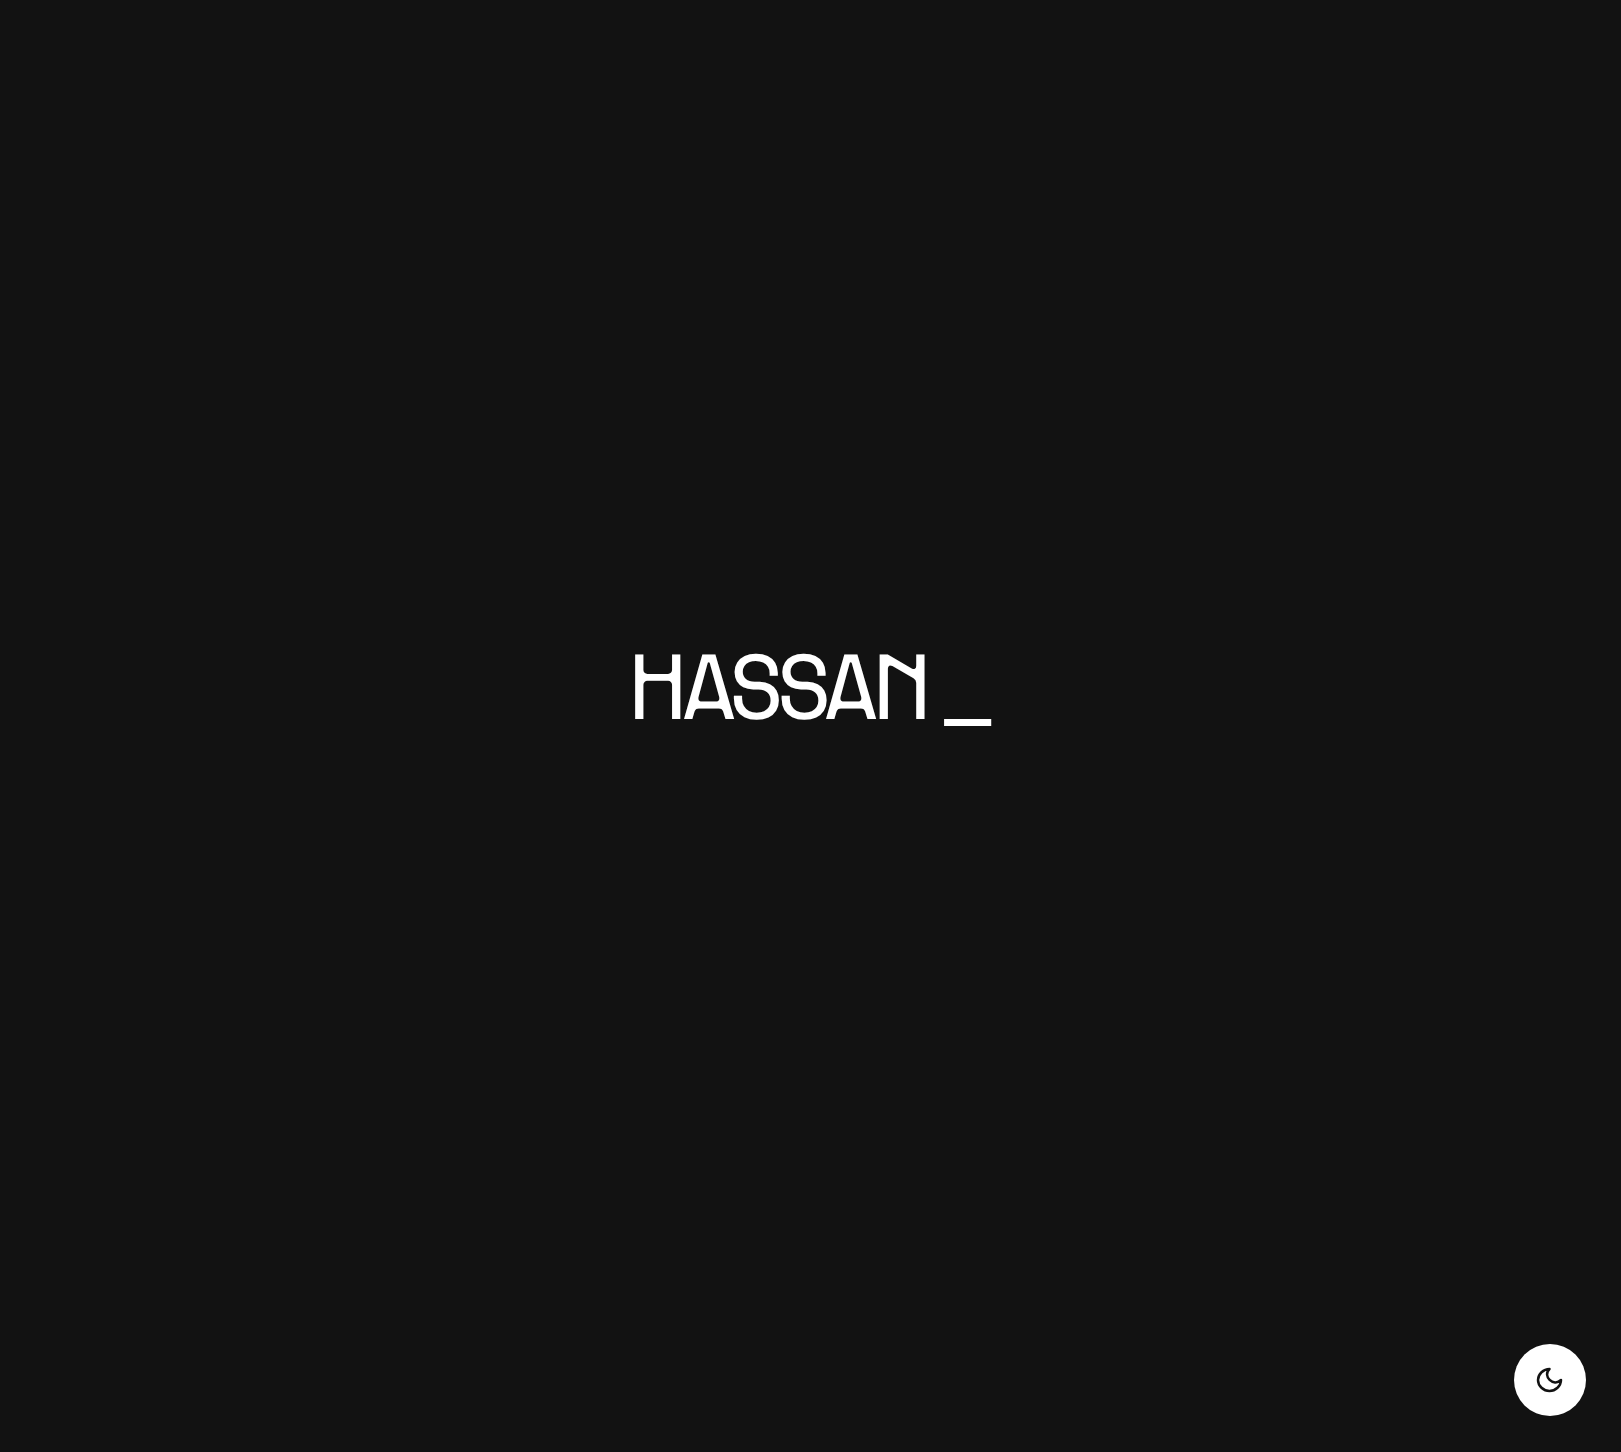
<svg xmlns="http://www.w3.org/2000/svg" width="1621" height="1452">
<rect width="100%" height="100%" fill="#121212"/>
<text x="630" y="719" style="font-family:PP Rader;font-size:90px;letter-spacing:-2.25px;fill:#fff">HASSAN</text>
<text x="947" y="719" style="font-family:PP Rader;font-size:90px;letter-spacing:-2.25px;fill:#fff">_</text>
<circle cx="1550" cy="1380" r="36" fill="#fff"/>
<path d="M1549.5 1369c-7.5 7 4 18.5 11.5 11c0 6-5.5 11-11.5 11c-6 0-11.5-5-11.5-11c0-6 5.5-11 11.5-11z" fill="none" stroke="#121212" stroke-width="2.5" stroke-linecap="round" stroke-linejoin="round"/>
</svg>
